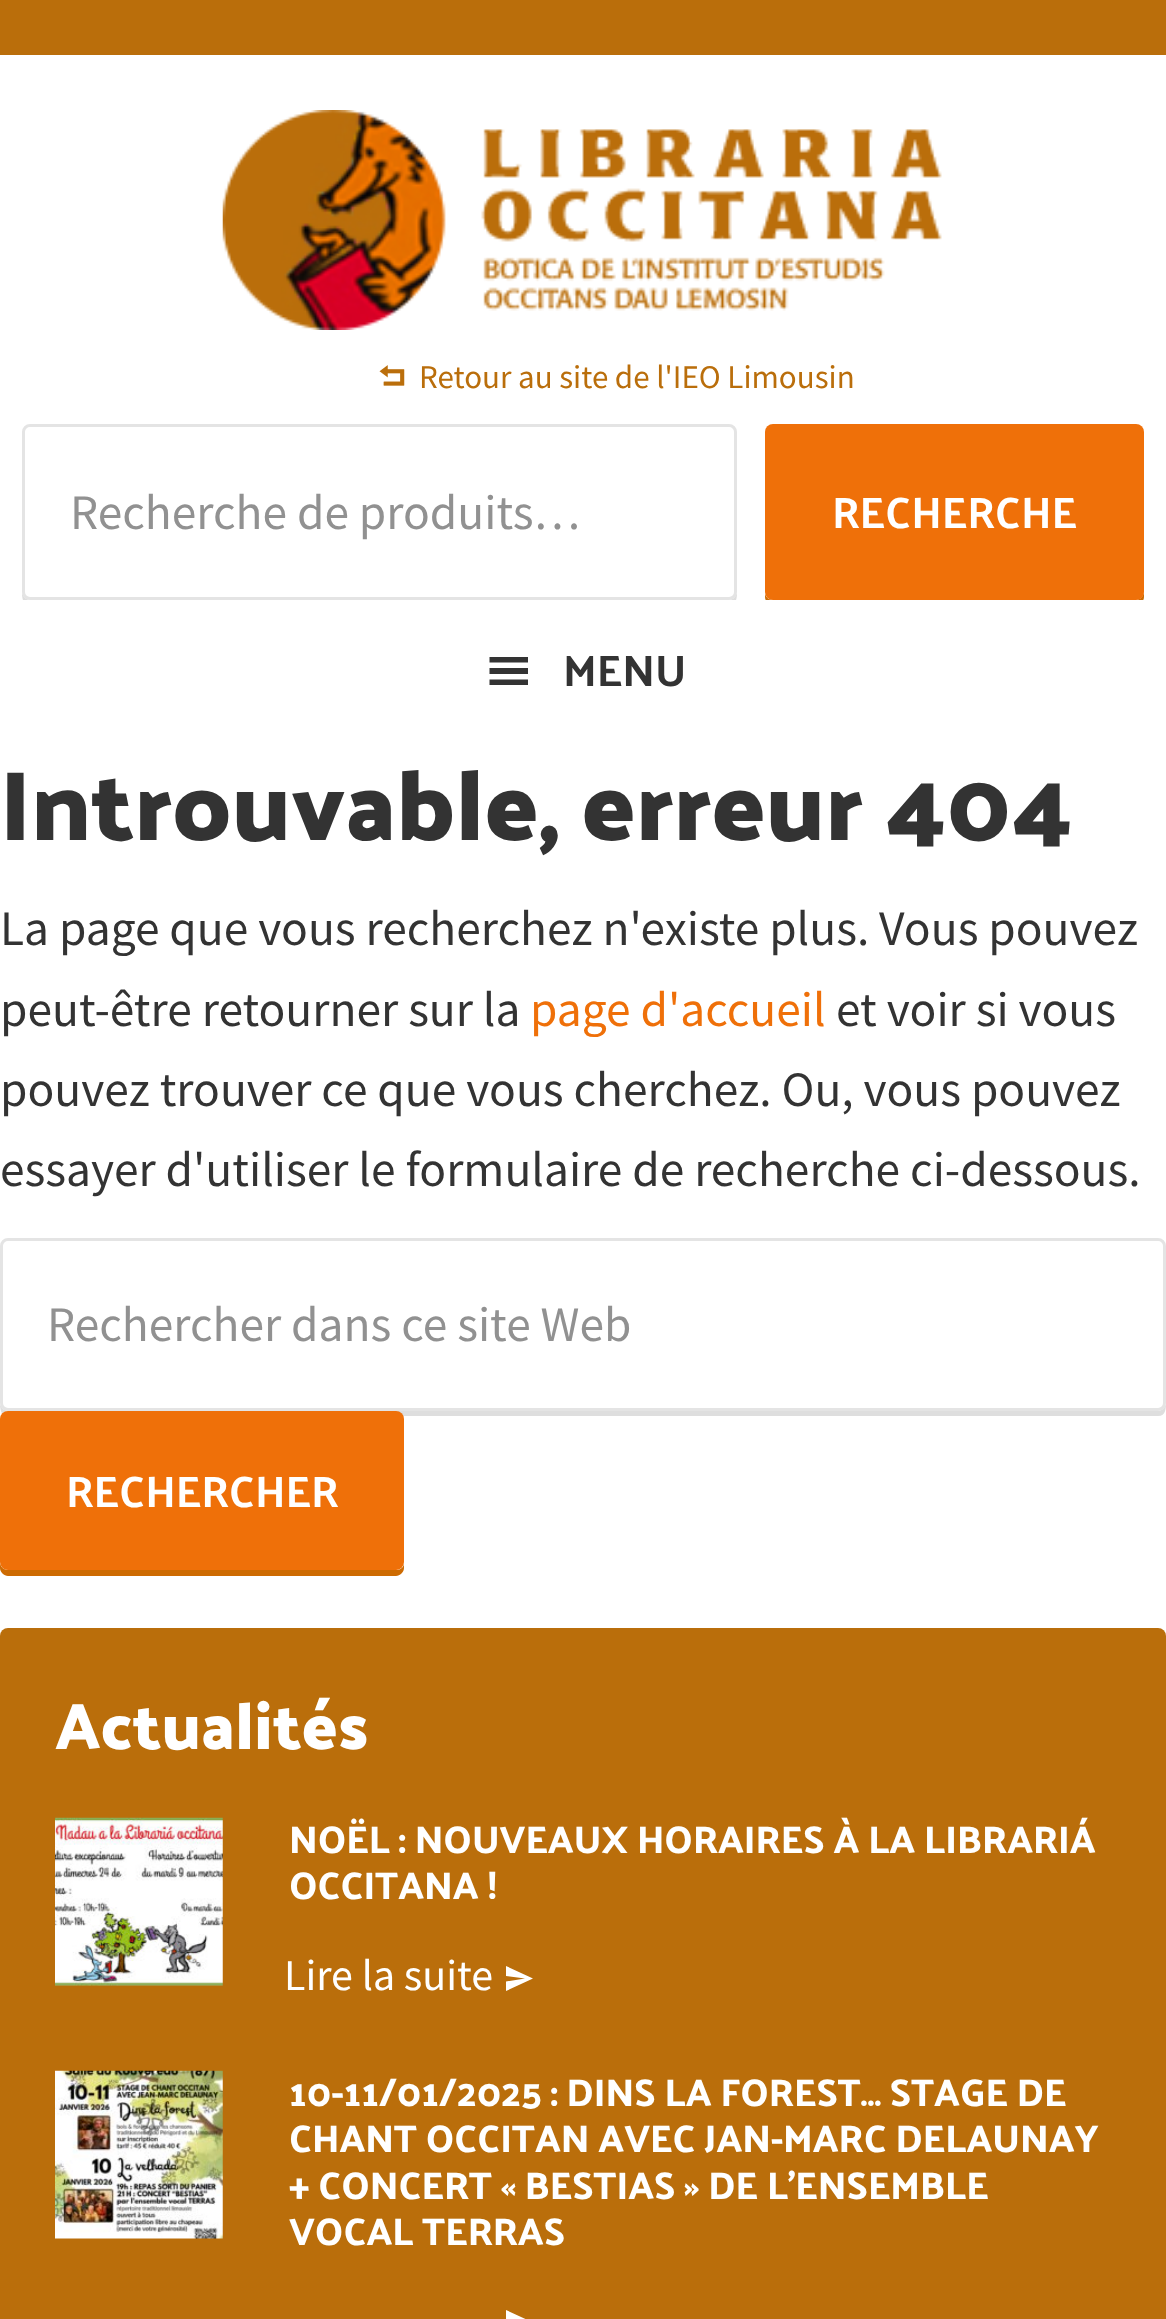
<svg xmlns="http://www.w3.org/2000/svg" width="1166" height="2319">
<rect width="100%" height="100%" fill="#fff"/>
<rect width="1166" height="55" fill="#ba6e0b"/>
<image x="222" y="110" width="720" height="220" href="media/1.png"/>
<image x="379" y="365" width="26" height="21" href="media/2.png"/>
<text x="419" y="388" style="font-family:Source Sans Pro;font-size:33px;fill:#ba6e0b">Retour au site de l'IEO Limousin</text>
<path d="M22 591c0 6 0 14 8 14h699c8 0 8-8 8-14c0 5-4 9-8 9h-699c-4 0-8-4-8-9z" fill="#dedede"/>
<rect x="23.5" y="425.5" width="712" height="173" rx="6.5" fill="#fff" stroke="#e4e4e4" stroke-width="3"/>
<text x="70" y="529" style="font-family:Source Sans Pro;font-size:49.5px;fill:#919191">Recherche de produits…</text>
<path d="M765 594v3c0 4 4 8 8 8h363c4 0 8-4 8-8v-6c0 5-4 9-8 9h-363c-4 0-7-3-8-6z" fill="#cd6b02"/>
<rect x="765" y="424" width="379" height="176" rx="8" fill="#ef7009"/>
<text x="832" y="528" style="font-family:Palanquin Dark;font-size:44px;fill:#fff">RECHERCHE</text>
<rect y="600" width="1166" height="143" rx="8" fill="#fff"/>
<path d="M489.5 685h38.5v-5.5h-38.5zm0-28v5.5h38.5v-5.5zm0 17h38.5v-6h-38.5z" fill="#333"/>
<text x="563" y="686" style="font-family:Palanquin Dark;font-size:44px;fill:#333">MENU</text>
<text x="0" y="840" style="font-family:Palanquin Dark;font-size:99px;font-weight:600;fill:#333">Introuvable, erreur 404</text>
<text x="0" y="945" style="font-family:Source Sans Pro;font-size:49.5px;fill:#333">La page que vous recherchez n'existe plus. Vous pouvez</text>
<text x="0" y="1026" style="font-family:Source Sans Pro;font-size:49.5px;fill:#333">peut-être retourner sur la</text>
<text x="530" y="1026" style="font-family:Source Sans Pro;font-size:49.5px;fill:#ef7009">page d'accueil</text>
<text x="836" y="1026" style="font-family:Source Sans Pro;font-size:49.5px;fill:#333">et voir si vous</text>
<text x="0" y="1106" style="font-family:Source Sans Pro;font-size:49.5px;fill:#333">pouvez trouver ce que vous cherchez. Ou, vous pouvez</text>
<text x="0" y="1186" style="font-family:Source Sans Pro;font-size:49.5px;fill:#333">essayer d'utiliser le formulaire de recherche ci-dessous.</text>
<path d="M0 1402c0 6 0 14 8 14h1150c8 0 8-8 8-14c0 5-4 9-8 9h-1150c-4 0-8-4-8-9z" fill="#dedede"/>
<rect x="1.5" y="1239.5" width="1163" height="170" rx="6.5" fill="#fff" stroke="#e4e4e4" stroke-width="3"/>
<text x="47" y="1341" style="font-family:Source Sans Pro;font-size:49.5px;fill:#919191">Rechercher dans ce site Web</text>
<path d="M0 1562v6c0 4 4 8 8 8h388c4 0 8-4 8-8v-4c-1 4-4 6-8 6h-388c-4 0-8-3-8-8z" fill="#cd6b02"/>
<rect y="1411" width="404" height="159" rx="8" fill="#ef7009"/>
<text x="66" y="1507" style="font-family:Palanquin Dark;font-size:44px;fill:#fff">RECHERCHER</text>
<rect y="1628" width="1166" height="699" rx="8" fill="#ba6e0b"/>
<text x="55" y="1749" style="font-family:Palanquin Dark;font-size:66px;font-weight:600;fill:#fff">Actualités</text>
<image x="55" y="1817" width="168" height="169" href="media/3.png"/>
<text x="289" y="1853" style="font-family:Palanquin Dark;font-size:38.5px;font-weight:500;fill:#fff">NOËL : NOUVEAUX HORAIRES À LA LIBRARIÁ</text>
<text x="289" y="1899" style="font-family:Palanquin Dark;font-size:38.5px;font-weight:500;fill:#fff">OCCITANA !</text>
<text x="284" y="1990" style="font-family:Source Sans Pro;font-size:44px;fill:#fff">Lire la suite</text>
<path d="M506 1991v-9.5l19-3l-19-2.5v-10l27 12.5z" fill="#fff"/>
<image x="55" y="2070" width="168" height="169" href="media/4.png"/>
<text x="289" y="2106" style="font-family:Palanquin Dark;font-size:38.5px;font-weight:500;fill:#fff">10-11/01/2025 : DINS LA FOREST… STAGE DE</text>
<text x="289" y="2152" style="font-family:Palanquin Dark;font-size:38.5px;font-weight:500;fill:#fff">CHANT OCCITAN AVEC JAN-MARC DELAUNAY</text>
<text x="289" y="2199" style="font-family:Palanquin Dark;font-size:38.5px;font-weight:500;fill:#fff">+ CONCERT « BESTIAS » DE L’ENSEMBLE</text>
<text x="289" y="2245" style="font-family:Palanquin Dark;font-size:38.5px;font-weight:500;fill:#fff">VOCAL TERRAS</text>
<path d="M506 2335v-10l19-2.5l-19-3v-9.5l27 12.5z" fill="#fff"/>
</svg>
